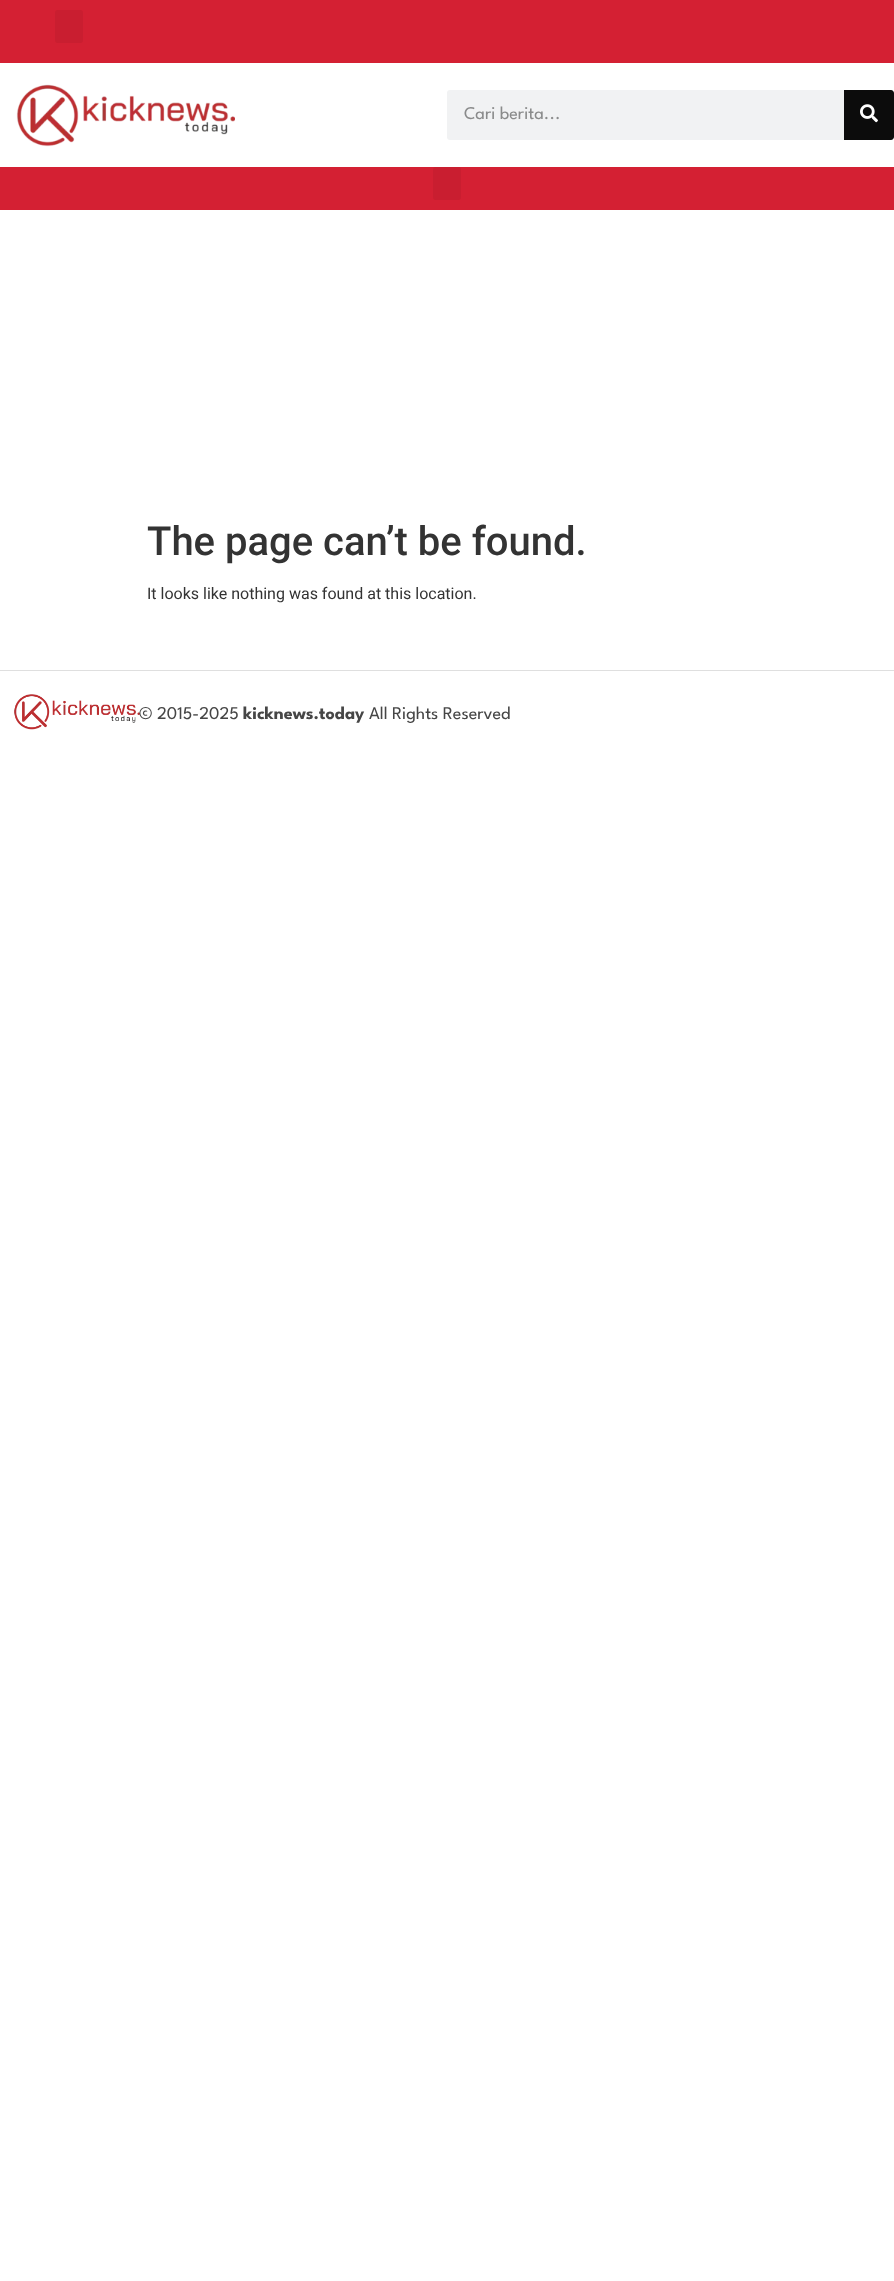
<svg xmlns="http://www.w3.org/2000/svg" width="894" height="2281">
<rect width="100%" height="100%" fill="#fff"/>
<rect width="894" height="63" fill="#d42033"/>
<rect x="55" y="10" width="28" height="33" rx="3" fill="#c91e30"/>
<image x="16" y="84" width="219" height="63" href="media/1.png"/>
<rect x="447" y="90" width="447" height="50" rx="3" fill="#f1f2f3"/>
<text x="464" y="119" style="font-family:League Spartan;font-size:18px;fill:#8a8b8b">Cari berita...</text>
<path d="M844 90h47c1.5 0 3 1.5 3 3v44c0 1.5-1.5 3-3 3h-47z" fill="#0c0c0c"/>
<image x="860" y="104" width="18" height="19" href="media/2.png"/>
<rect y="167" width="894" height="43" fill="#d42033"/>
<rect x="433" y="167" width="28" height="33" rx="3" fill="#c91e30"/>
<text x="147" y="555" style="font-family:Roboto;font-size:40px;font-weight:500;fill:#333">The page can’t be found.</text>
<text x="147" y="599" style="font-family:Roboto;font-size:16px;fill:#333">It looks like nothing was found at this location.</text>
<rect y="670" width="894" height="1" fill="#dfdfdf"/>
<image x="14" y="694" width="126" height="36" href="media/3.png"/>
<text x="139" y="719" style="font-family:League Spartan;font-size:18px;fill:#464646">© 2015-2025</text>
<text x="243" y="719" style="font-family:League Spartan;font-size:18px;font-weight:bold;fill:#464646">kicknews.today</text>
<text x="369" y="719" style="font-family:League Spartan;font-size:18px;fill:#464646">All Rights Reserved</text>
</svg>
